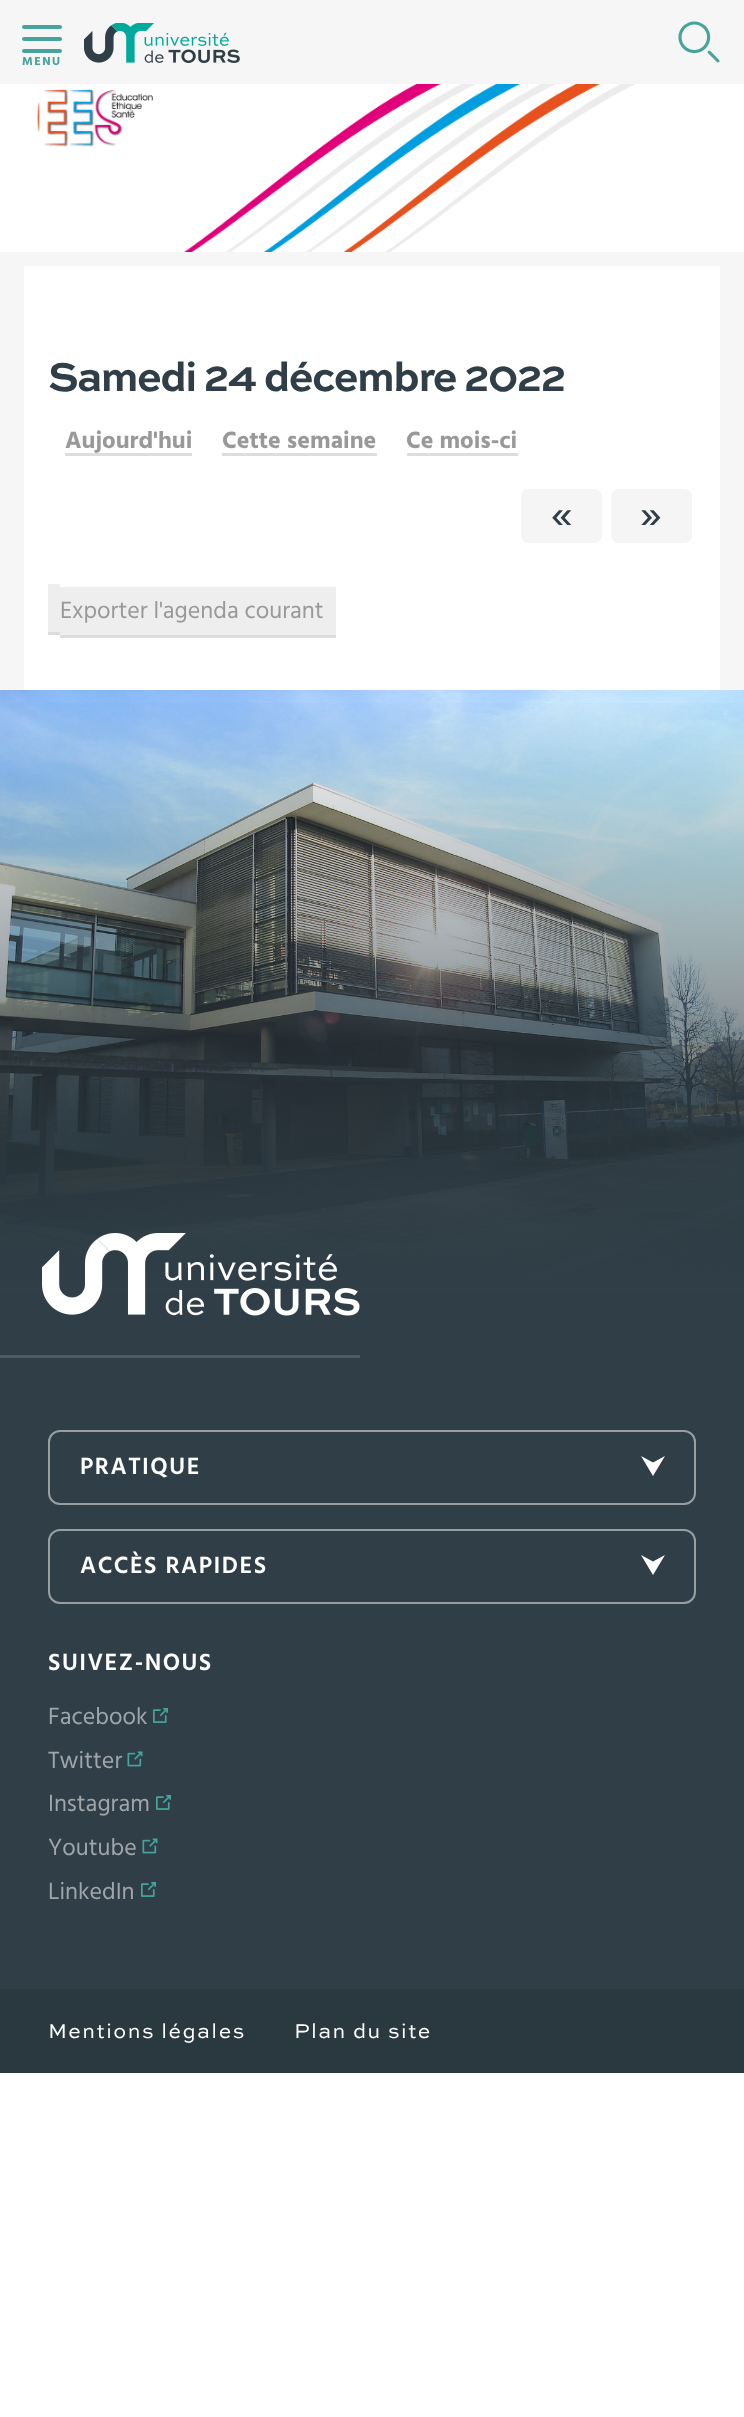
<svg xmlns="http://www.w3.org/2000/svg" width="744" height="2417">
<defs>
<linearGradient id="g1" gradientUnits="userSpaceOnUse" x1="372" y1="690" x2="372" y2="1292"><stop offset="0" stop-color="#2f3e47" stop-opacity="0"/><stop offset="1" stop-color="#2f3e47"/></linearGradient>
</defs>
<rect width="100%" height="100%" fill="#fff"/>
<rect width="744" height="84" fill="#f6f6f6"/>
<image x="22" y="25" width="40" height="28" href="media/1.png"/>
<text x="22" y="65" style="font-family:Hind;font-size:12px;font-weight:bold;letter-spacing:1.5px;fill:#45a59d">MENU</text>
<image x="84" y="23" width="156" height="40" href="media/2.png"/>
<image x="678" y="21" width="42" height="42" href="media/3.png"/>
<rect y="252" width="744" height="438" fill="#f6f6f6"/>
<image x="0" y="84" width="744" height="168" href="media/4.png"/>
<rect x="24" y="266" width="696" height="424" fill="#fff"/>
<text x="48" y="391" style="font-family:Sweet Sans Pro;font-size:42px;font-weight:bold;letter-spacing:-1.5px;fill:#2f3e47">Samedi 24 décembre 2022</text>
<text x="65" y="448" style="font-family:Hind;font-size:24px;font-weight:bold;fill:#999">Aujourd'hui</text>
<rect x="65" y="453" width="127" height="3" fill="#ddd"/>
<text x="222" y="448" style="font-family:Hind;font-size:24px;font-weight:bold;fill:#999">Cette semaine</text>
<rect x="222" y="453" width="155" height="3" fill="#ddd"/>
<text x="406" y="448" style="font-family:Hind;font-size:24px;font-weight:bold;fill:#999">Ce mois-ci</text>
<rect x="407" y="453" width="111" height="3" fill="#ddd"/>
<rect x="521" y="489" width="81" height="54" rx="8" fill="#f5f5f5"/>
<text x="551" y="529" style="font-family:Hind;font-size:45px;fill:#2f3e47">«</text>
<rect x="611" y="489" width="81" height="54" rx="8" fill="#f5f5f5"/>
<text x="640" y="529" style="font-family:Hind;font-size:45px;fill:#2f3e47">»</text>
<rect x="60" y="587" width="276" height="48" fill="#eee"/>
<text x="60" y="618" style="font-family:Hind;font-size:24px;fill:#999">Exporter l'agenda courant</text>
<rect x="48" y="584" width="12" height="48" fill="#eee"/>
<rect x="48" y="632" width="12" height="3" fill="#ddd"/>
<rect x="60" y="635" width="276" height="3" fill="#ddd"/>
<rect y="1292" width="744" height="697" fill="#2f3e47"/>
<image x="0" y="690" width="744" height="598" href="media/5.png"/>
<rect y="703" width="744" height="589" fill="url(#g1)"/>
<rect y="1355" width="360" height="3" fill="#4e5b63"/>
<image x="42" y="1233" width="318" height="83" href="media/6.png"/>
<rect x="49" y="1431" width="646" height="73" rx="11" fill="none" stroke="#979fa3" stroke-width="2"/>
<text x="80" y="1474" style="font-family:Hind;font-size:24px;font-weight:600;letter-spacing:1.5px;fill:#fff">PRATIQUE</text>
<path d="M665 1456l-12 20l-12-20l12 6.5z" fill="#fff"/>
<rect x="49" y="1530" width="646" height="73" rx="11" fill="none" stroke="#979fa3" stroke-width="2"/>
<text x="80" y="1573" style="font-family:Hind;font-size:24px;font-weight:600;letter-spacing:1.5px;fill:#fff">ACCÈS RAPIDES</text>
<path d="M665 1555l-12 20l-12-20l12 6.5z" fill="#fff"/>
<text x="48" y="1670" style="font-family:Hind;font-size:24px;font-weight:600;letter-spacing:1.5px;fill:#fff">SUIVEZ-NOUS</text>
<text x="48" y="1724" style="font-family:Hind;font-size:24px;fill:#9fa6aa">Facebook</text>
<image x="153" y="1708" width="15" height="15" href="media/7.png"/>
<text x="48" y="1768" style="font-family:Hind;font-size:24px;fill:#9fa6aa">Twitter</text>
<image x="127" y="1751" width="16" height="16" href="media/8.png"/>
<text x="48" y="1811" style="font-family:Hind;font-size:24px;fill:#9fa6aa">Instagram</text>
<image x="156" y="1795" width="15" height="15" href="media/7.png"/>
<text x="48" y="1855" style="font-family:Hind;font-size:24px;fill:#9fa6aa">Youtube</text>
<image x="142" y="1838" width="16" height="16" href="media/8.png"/>
<text x="48" y="1899" style="font-family:Hind;font-size:24px;fill:#9fa6aa">LinkedIn</text>
<image x="141" y="1882" width="15" height="15" href="media/7.png"/>
<rect y="1989" width="744" height="84" fill="#2a3840"/>
<text x="48" y="2038" style="font-family:Sweet Sans Pro;font-size:21px;letter-spacing:1.5px;fill:#fff">Mentions légales</text>
<text x="294" y="2038" style="font-family:Sweet Sans Pro;font-size:21px;letter-spacing:1.5px;fill:#fff">Plan du site</text>
</svg>
